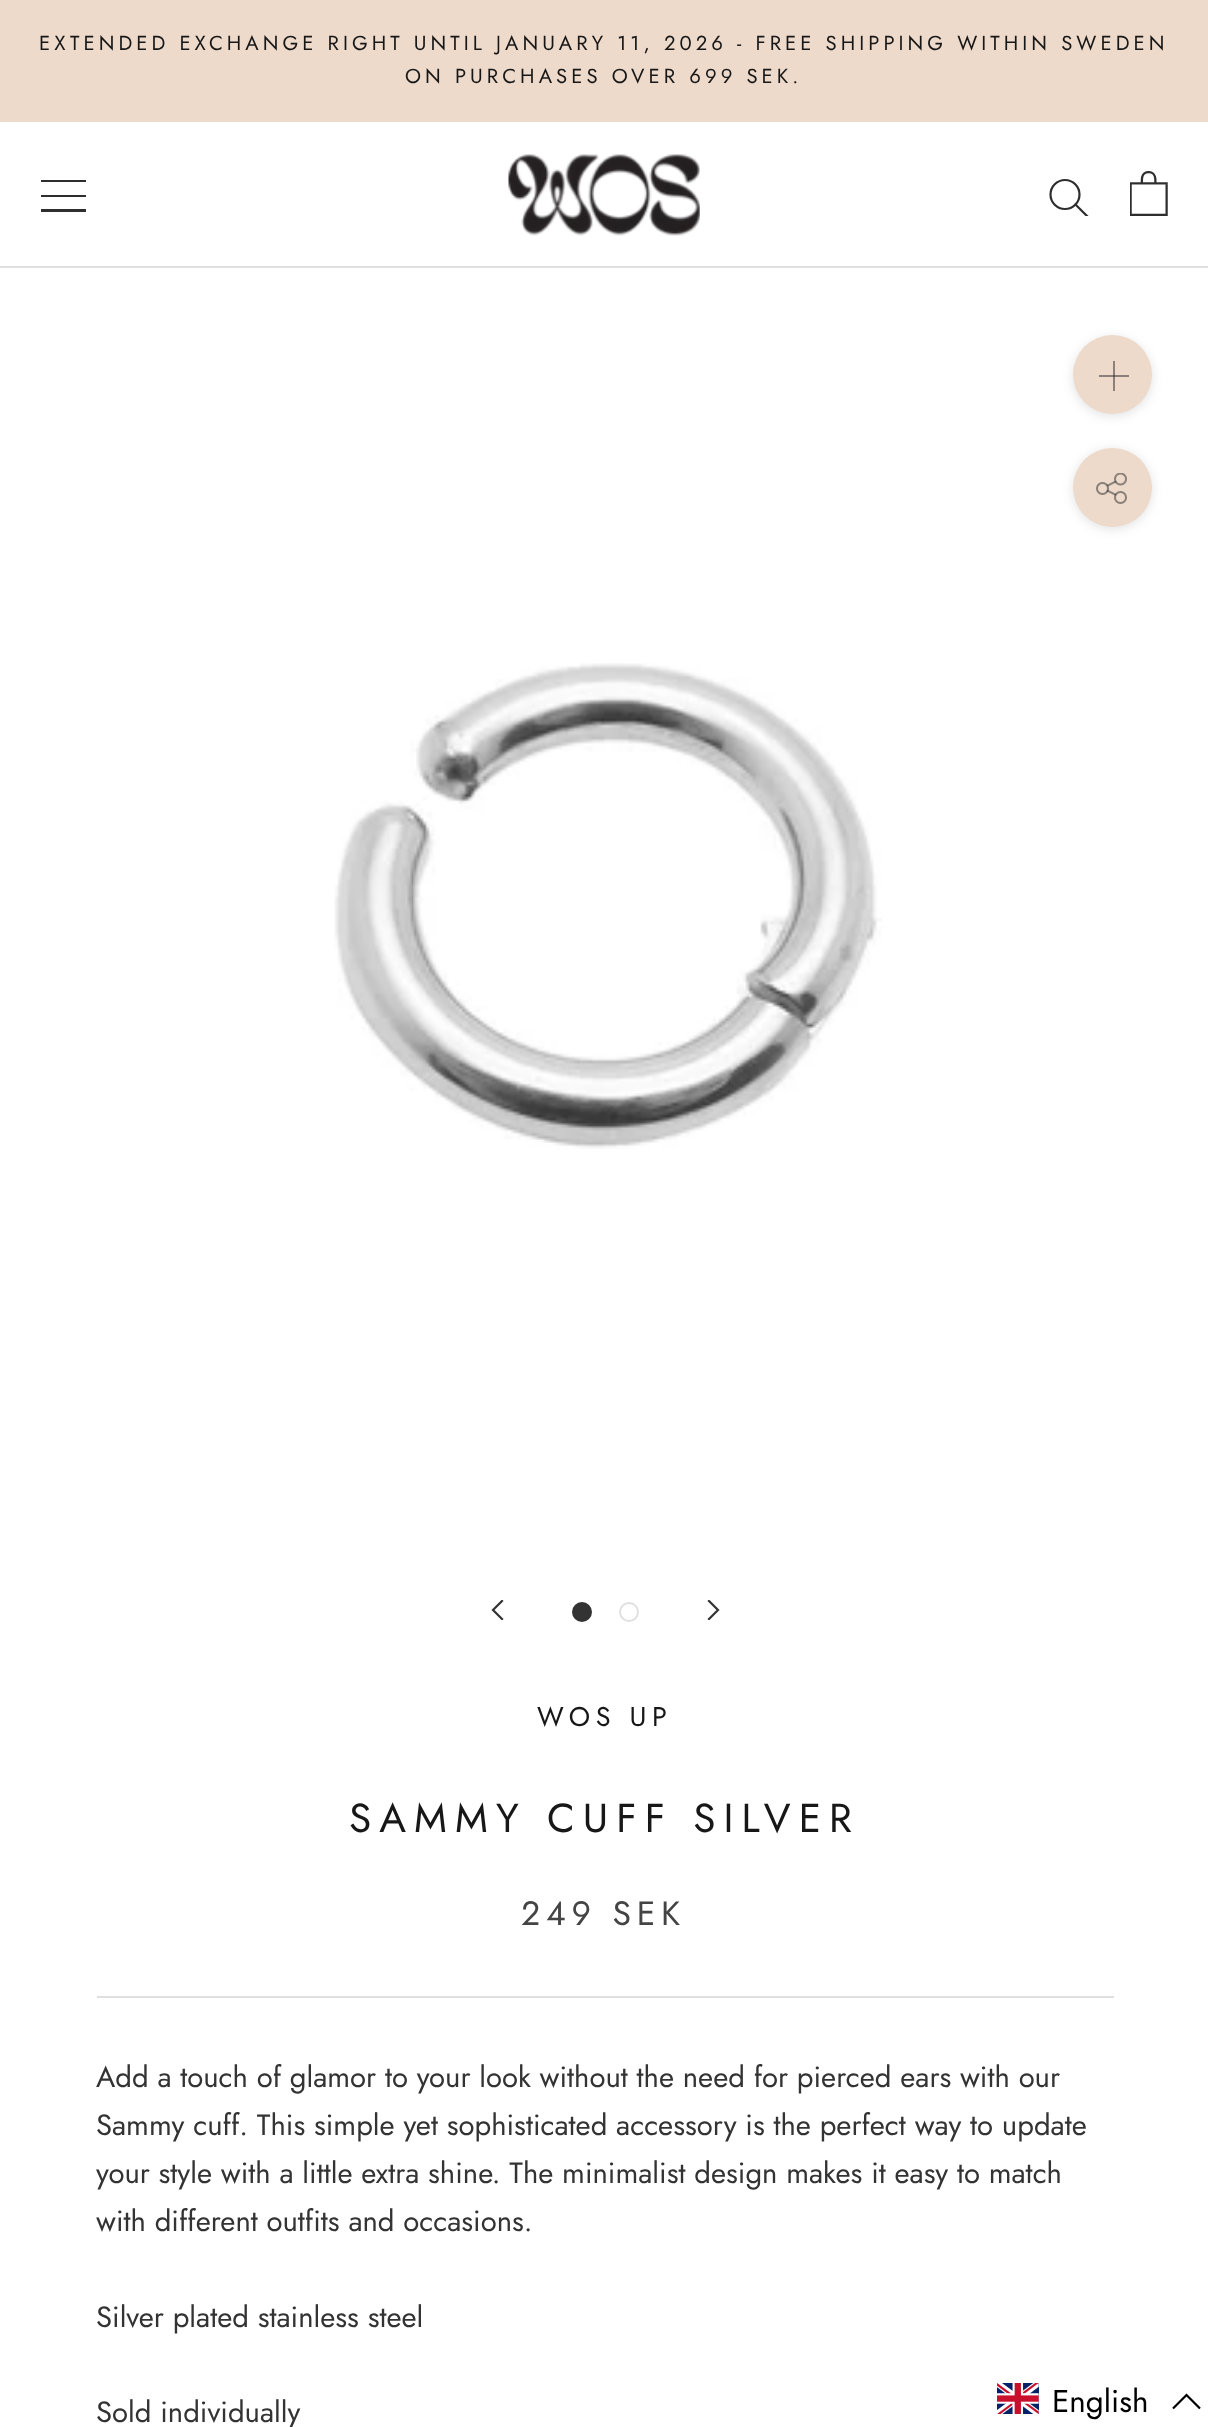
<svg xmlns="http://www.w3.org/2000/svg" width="1208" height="2427">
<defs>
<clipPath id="clip1"><rect x="41" y="180" width="45" height="32"/></clipPath>
<clipPath id="clip2"><rect x="1049" y="178" width="40" height="38"/></clipPath>
<clipPath id="clip3"><rect x="491" y="1600" width="13" height="20"/></clipPath>
<clipPath id="clip4"><rect x="707" y="1600" width="13" height="20"/></clipPath>
</defs>
<rect width="100%" height="100%" fill="#fff"/>
<rect width="1208" height="122" fill="#eddacb"/>
<text x="39" y="50" style="font-family:Jost;font-size:20.25px;letter-spacing:4.05px;fill:#171717">EXTENDED EXCHANGE RIGHT UNTIL JANUARY 11, 2026 - FREE SHIPPING WITHIN SWEDEN</text>
<text x="405" y="83" style="font-family:Jost;font-size:20.25px;letter-spacing:4.05px;fill:#171717">ON PURCHASES OVER 699 SEK.</text>
<rect y="266" width="1208" height="2" fill="#e0e0e0"/>
<g clip-path="url(#clip1)">
<path d="M40 212v-3h46v3zm0-17h46v2h-46zm0-15h46v2h-46z" fill="#2e2e2e"/>
</g>
<image x="508" y="154" width="192" height="82" href="media/1.png"/>
<g clip-path="url(#clip2)">
<path d="M1087 216l-11.5-11.5" fill="none" stroke="#2e2e2e" stroke-width="2.2" stroke-linecap="square"/>
</g>
<circle cx="1065" cy="194.5" r="14.5" fill="none" stroke="#2e2e2e" stroke-width="2.2"/>
<image x="1130" y="171" width="38" height="45" href="media/2.png"/>
<rect x="1073" y="338" width="79" height="78" rx="39" fill="#36363626" filter="blur(5.5px)"/>
<circle cx="1112.5" cy="374.5" r="39.5" fill="#eddacb"/>
<rect x="1099" y="375" width="30" height="2" fill="#8b817a"/>
<rect x="1113" y="361" width="2" height="30" fill="#8b817a"/>
<rect x="1113" y="375" width="2" height="2" fill="#5a5551"/>
<rect x="1073" y="450" width="79" height="79" rx="39.5" fill="#36363626" filter="blur(5.5px)"/>
<circle cx="1112.5" cy="487.5" r="39.5" fill="#eddacb"/>
<image x="1096" y="473" width="31" height="31" href="media/3.png"/>
<image x="334" y="663" width="548" height="486" href="media/4.png"/>
<g clip-path="url(#clip3)">
<path d="M502 1619l-9-9l9-9" fill="none" stroke="#333" stroke-width="2.2" stroke-linecap="square"/>
</g>
<circle cx="582" cy="1612" r="9" fill="#333" stroke="#333" stroke-width="2"/>
<circle cx="629" cy="1612" r="9" fill="none" stroke="#e0e0e0" stroke-width="2"/>
<g clip-path="url(#clip4)">
<path d="M709 1619l9-9l-9-9" fill="none" stroke="#333" stroke-width="2.2" stroke-linecap="square"/>
</g>
<text x="537" y="1726" style="font-family:Jost;font-size:27px;letter-spacing:5.5px;fill:#171717">WOS UP</text>
<text x="349" y="1832" style="font-family:Jost;font-size:40.5px;letter-spacing:8.1px;fill:#171717">SAMMY CUFF SILVER</text>
<text x="521" y="1925" style="font-family:Jost;font-size:33.75px;letter-spacing:5.75px;fill:#444">249 SEK</text>
<rect x="97" y="1996" width="1017" height="2" fill="#e0e0e0"/>
<text x="96" y="2087" style="font-family:Jost;font-size:29.25px;fill:#333">Add a touch of glamor to your look without the need for pierced ears with our</text>
<text x="96" y="2135" style="font-family:Jost;font-size:29.25px;fill:#333">Sammy cuff. This simple yet sophisticated accessory is the perfect way to update</text>
<text x="96" y="2183" style="font-family:Jost;font-size:29.25px;fill:#333">your style with a little extra shine. The minimalist design makes it easy to match</text>
<text x="96" y="2231" style="font-family:Jost;font-size:29.25px;fill:#333">with different outfits and occasions.</text>
<text x="96" y="2327" style="font-family:Jost;font-size:29.25px;fill:#333">Silver plated stainless steel</text>
<text x="96" y="2422" style="font-family:Jost;font-size:29.25px;fill:#333">Sold individually</text>
<image x="997" y="2383" width="42" height="31" href="media/5.png"/>
<text x="1052" y="2412" style="font-family:Jost;font-size:31.5px;fill:#000">English</text>
<path d="M1200 2408.5l-13.5-13.5l-13.5 13.5" fill="none" stroke="#000" stroke-width="2.2"/>
</svg>
